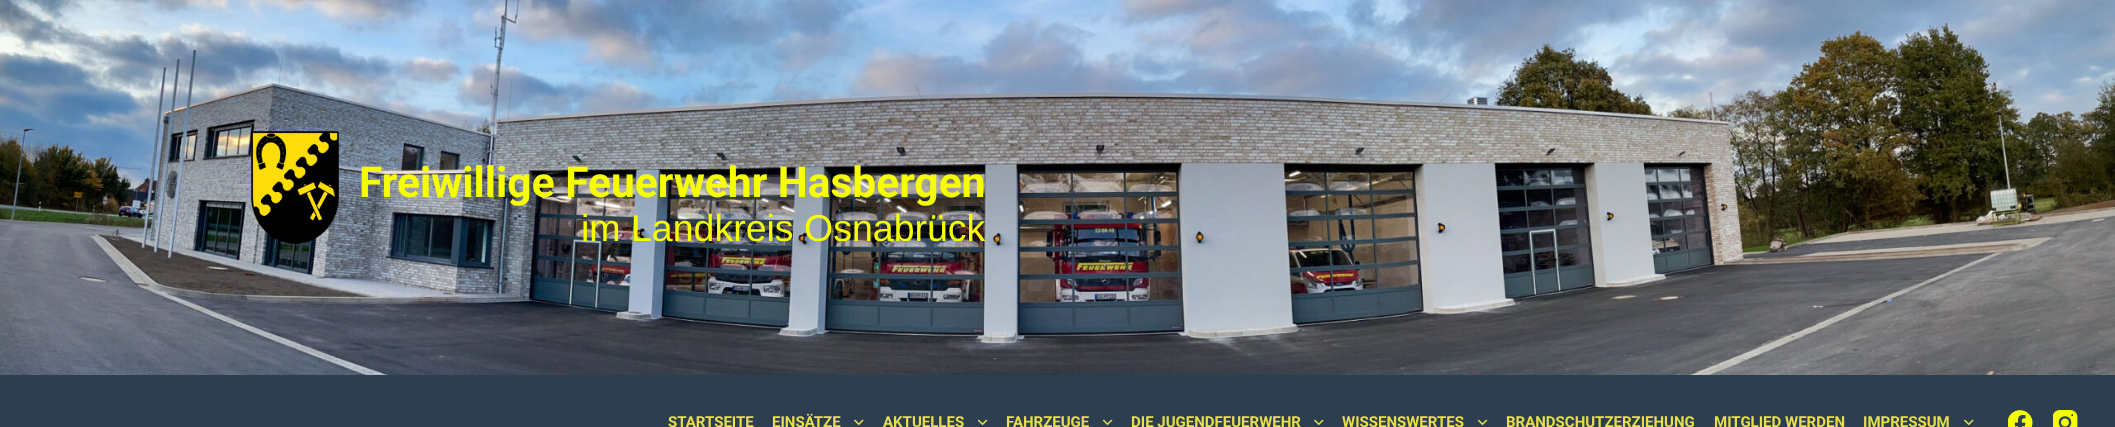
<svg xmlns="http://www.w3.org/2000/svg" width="2115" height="427">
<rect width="100%" height="100%" fill="#2c3e50"/>
<image x="0" y="0" width="2115" height="375" href="media/1.png"/>
<image x="251" y="131" width="88" height="113" href="media/2.png"/>
<text x="359" y="197" style="font-family:Roboto;font-size:42.5px;font-weight:bold;fill:#f5ff00">Freiwillige Feuerwehr Hasbergen</text>
<text x="581" y="241" style="font-family:Liberation Sans;font-size:37.5px;fill:#f5ff00">im Landkreis Osnabrück</text>
<text x="668" y="427" style="font-family:Roboto;font-size:15px;font-weight:bold;fill:#e8df4a">STARTSEITE</text>
<text x="772" y="427" style="font-family:Roboto;font-size:15px;font-weight:bold;fill:#e8df4a">EINSÄTZE</text>
<image x="854" y="419" width="10" height="7" href="media/3.png"/>
<text x="883" y="427" style="font-family:Roboto;font-size:15px;font-weight:bold;fill:#e8df4a">AKTUELLES</text>
<image x="978" y="419" width="10" height="7" href="media/4.png"/>
<text x="1006" y="427" style="font-family:Roboto;font-size:15px;font-weight:bold;fill:#e8df4a">FAHRZEUGE</text>
<image x="1103" y="419" width="10" height="7" href="media/4.png"/>
<text x="1131" y="427" style="font-family:Roboto;font-size:15px;font-weight:bold;fill:#e8df4a">DIE JUGENDFEUERWEHR</text>
<image x="1314" y="419" width="10" height="7" href="media/3.png"/>
<text x="1342" y="427" style="font-family:Roboto;font-size:15px;font-weight:bold;fill:#e8df4a">WISSENSWERTES</text>
<image x="1478" y="419" width="10" height="7" href="media/4.png"/>
<text x="1506" y="427" style="font-family:Roboto;font-size:15px;font-weight:bold;fill:#e8df4a">BRANDSCHUTZERZIEHUNG</text>
<text x="1714" y="427" style="font-family:Roboto;font-size:15px;font-weight:bold;fill:#e8df4a">MITGLIED WERDEN</text>
<text x="1863" y="427" style="font-family:Roboto;font-size:15px;font-weight:bold;fill:#e8df4a">IMPRESSUM</text>
<image x="1964" y="419" width="10" height="7" href="media/3.png"/>
<image x="2008" y="410" width="25" height="17" href="media/5.png"/>
<image x="2053" y="410" width="25" height="17" href="media/6.png"/>
</svg>
